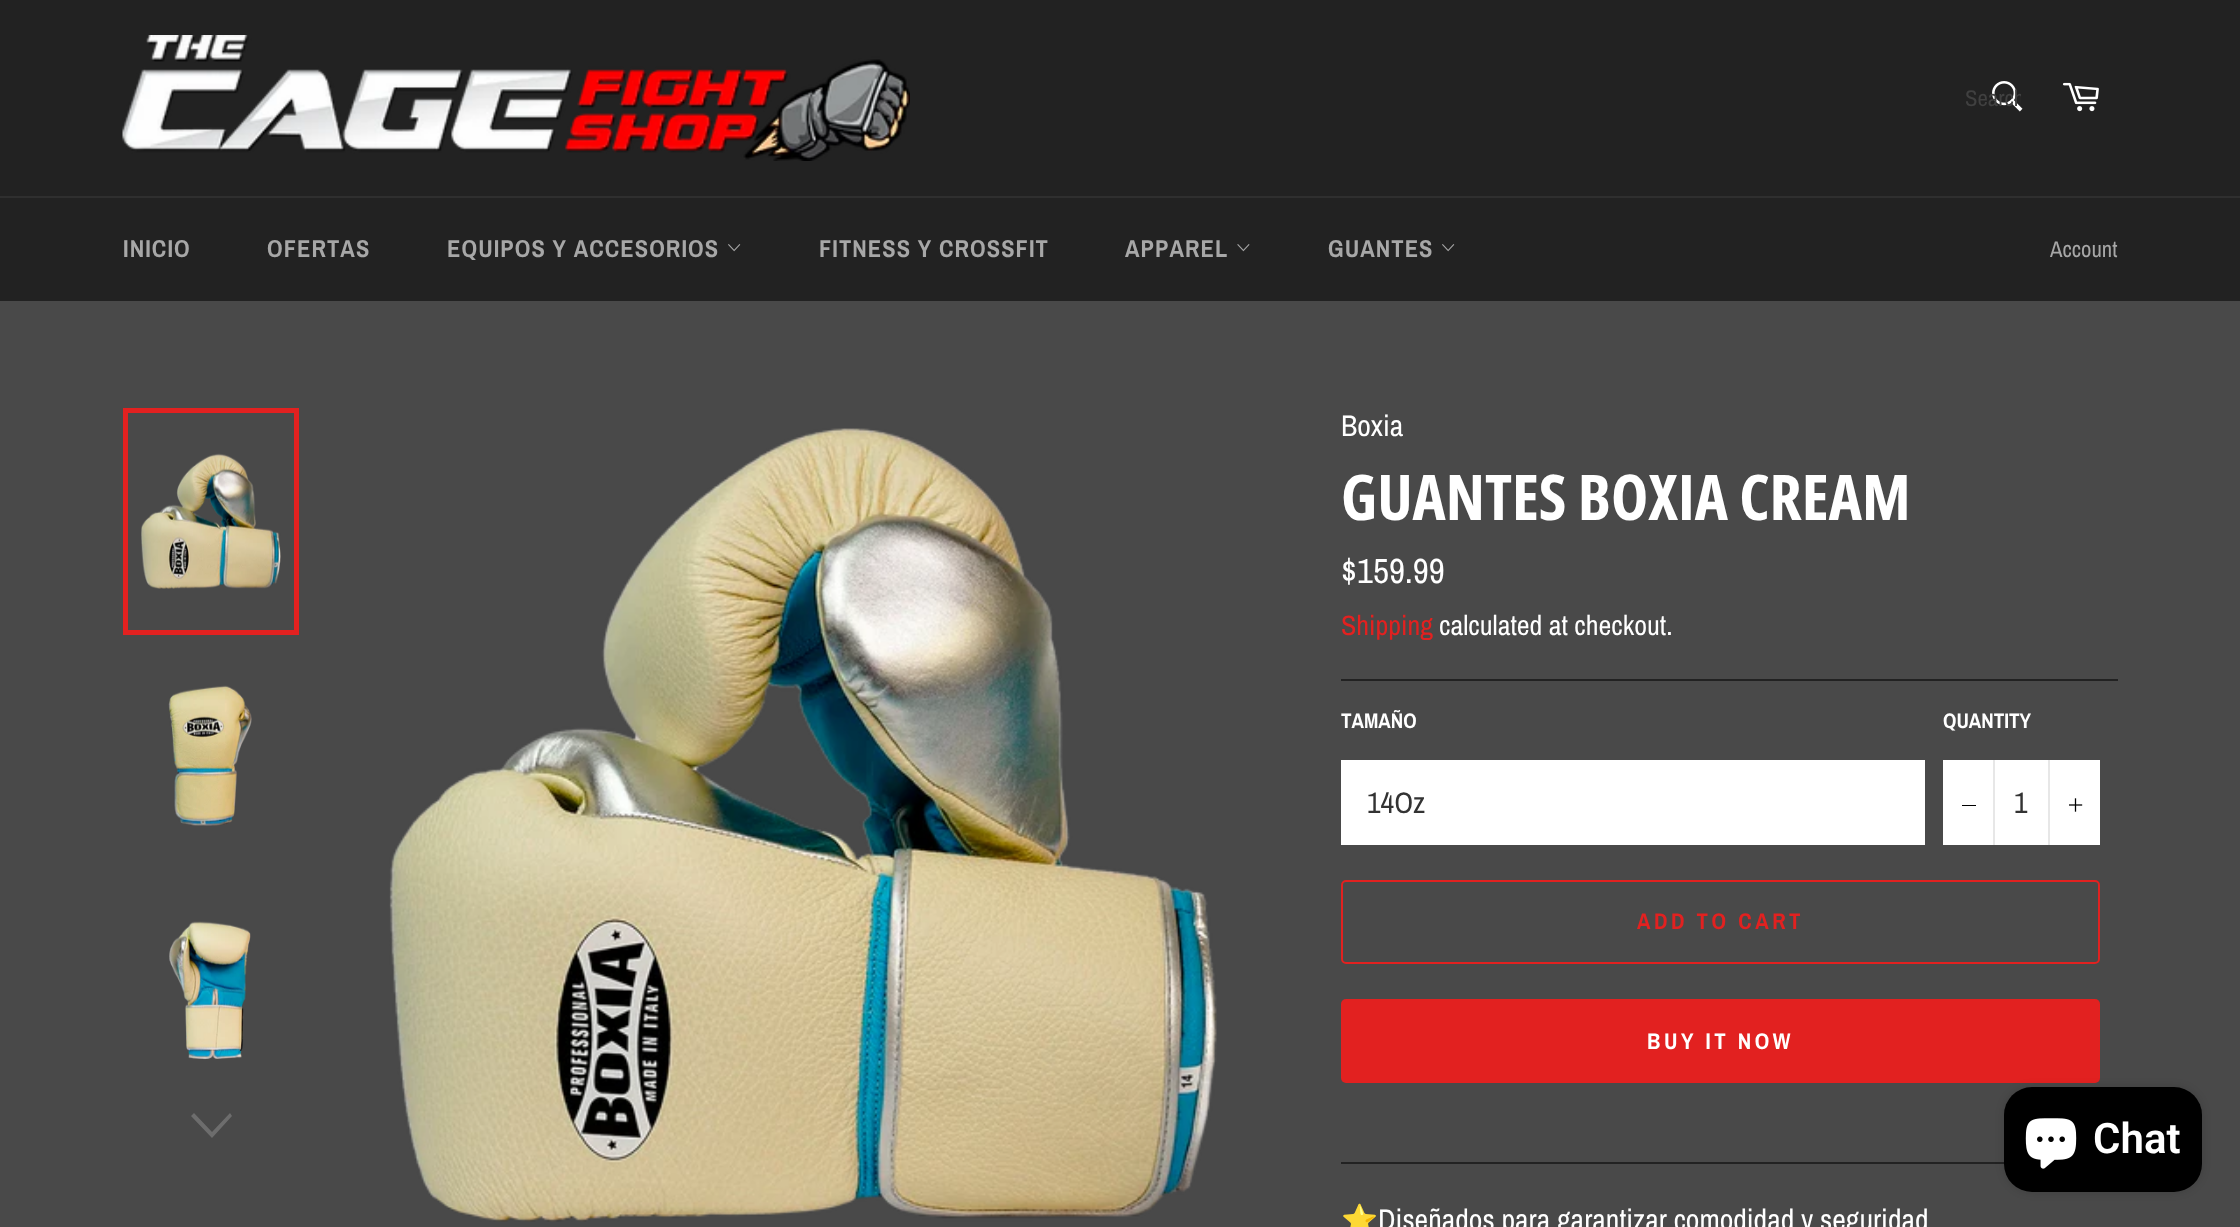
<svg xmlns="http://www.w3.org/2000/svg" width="2240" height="1227">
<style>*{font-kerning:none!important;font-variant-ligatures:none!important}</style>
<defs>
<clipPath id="clip1"><rect x="1965" y="84" width="56" height="30"/></clipPath>
</defs>
<rect width="100%" height="100%" fill="#222"/>
<image x="122" y="35" width="788" height="126" href="media/1.png"/>
<image x="1992" y="81" width="31" height="31" href="media/2.png"/>
<g clip-path="url(#clip1)">
<text x="1965" y="106" style="font-family:Archivo Narrow;font-size:22.75px;fill:#404040">Search</text>
</g>
<image x="2062" y="82" width="37" height="30" href="media/3.png"/>
<rect y="196" width="2240" height="2" fill="#2f2f2f"/>
<text x="123" y="257" style="font-family:Archivo Narrow;font-size:24.5px;font-weight:bold;letter-spacing:1.05px;fill:#a7a7a7">INICIO</text>
<text x="267" y="257" style="font-family:Archivo Narrow;font-size:24.5px;font-weight:bold;letter-spacing:1.05px;fill:#a7a7a7">OFERTAS</text>
<text x="447" y="257" style="font-family:Archivo Narrow;font-size:24.5px;font-weight:bold;letter-spacing:1.05px;fill:#a7a7a7">EQUIPOS Y ACCESORIOS</text>
<image x="728" y="244" width="13" height="8" href="media/4.png"/>
<text x="819" y="257" style="font-family:Archivo Narrow;font-size:24.5px;font-weight:bold;letter-spacing:1.05px;fill:#a7a7a7">FITNESS Y CROSSFIT</text>
<text x="1125" y="257" style="font-family:Archivo Narrow;font-size:24.5px;font-weight:bold;letter-spacing:1.05px;fill:#a7a7a7">APPAREL</text>
<image x="1237" y="244" width="13" height="8" href="media/5.png"/>
<text x="1328" y="257" style="font-family:Archivo Narrow;font-size:24.5px;font-weight:bold;letter-spacing:1.05px;fill:#a7a7a7">GUANTES</text>
<image x="1442" y="244" width="13" height="8" href="media/4.png"/>
<text x="2050" y="257" style="font-family:Archivo Narrow;font-size:22.75px;fill:#a7a7a7">Account</text>
<rect y="301" width="2240" height="926" fill="#494949"/>
<image x="141" y="453" width="140" height="136" href="media/6.png"/>
<rect x="125.5" y="410.5" width="171" height="222" fill="none" stroke="#e22120" stroke-width="5"/>
<image x="168" y="685" width="84" height="141" href="media/7.png"/>
<image x="169" y="921" width="82" height="139" href="media/8.png"/>
<path d="M230 1113l2 3l-20 22l-21-22l3-3l18 19z" fill="#6d6d6d"/>
<image x="389" y="428" width="828" height="794" href="media/9.png"/>
<text x="1341" y="436" style="font-family:Archivo Narrow;font-size:29.75px;fill:#fff">Boxia</text>
<text x="1341" y="520" style="font-family:Open Sans Condensed;font-size:63px;font-weight:bold;fill:#fff">GUANTES BOXIA CREAM</text>
<text x="1341" y="583" style="font-family:Archivo Narrow;font-size:35px;fill:#fff">$159.99</text>
<text x="1341" y="635" style="font-family:Archivo Narrow;font-size:28px;fill:#e22120">Shipping</text>
<text x="1439" y="635" style="font-family:Archivo Narrow;font-size:28px;fill:#fff">calculated at checkout.</text>
<rect x="1341" y="679" width="777" height="2" fill="#222"/>
<text x="1341" y="728" style="font-family:Archivo Narrow;font-size:21px;font-weight:bold;fill:#fff">TAMAÑO</text>
<rect x="1341" y="760" width="584" height="85" fill="#fff"/>
<text x="1367" y="813" style="font-family:Archivo Narrow;font-size:29.75px;fill:#333">14Oz</text>
<text x="1943" y="728" style="font-family:Archivo Narrow;font-size:21px;font-weight:bold;fill:#fff">QUANTITY</text>
<rect x="1943" y="760" width="157" height="85" fill="#fff"/>
<rect x="1993" y="760" width="2" height="85" fill="#e7e7e7"/>
<rect x="1962" y="805" width="14" height="1" fill="#000"/>
<text x="2014" y="813" style="font-family:Archivo Narrow;font-size:29.75px;fill:#333">1</text>
<rect x="2048" y="760" width="2" height="85" fill="#e7e7e7"/>
<image x="2069" y="798" width="14" height="14" href="media/10.png"/>
<rect x="1342" y="881" width="757" height="82" rx="4" fill="none" stroke="#e22120" stroke-width="2"/>
<text x="1637" y="929" style="font-family:Archivo Narrow;font-size:22.75px;font-weight:bold;letter-spacing:3.5px;fill:#e22120">ADD TO CART</text>
<rect x="1341" y="999" width="759" height="84" rx="5" fill="#e22120"/>
<text x="1647" y="1049" style="font-family:Archivo Narrow;font-size:22.75px;font-weight:bold;letter-spacing:3.5px;fill:#fff">BUY IT NOW</text>
<rect x="1341" y="1162" width="663" height="2" fill="#222"/>
<text x="1341" y="1230" style="font-family:Noto Color Emoji;font-size:29.75px;fill:#fff">⭐</text>
<text x="1378" y="1230" style="font-family:Archivo Narrow;font-size:29.75px;fill:#fff">Diseñados para garantizar comodidad y seguridad</text>
<rect x="2004" y="1087" width="198" height="105" rx="28" fill="#00000026" filter="blur(4.5px)"/>
<rect x="2004" y="1087" width="198" height="105" rx="28" fill="#000"/>
<image x="2025" y="1118" width="52" height="51" href="media/11.png"/>
<text x="2093" y="1153" style="font-family:Roboto;font-size:42px;font-weight:600;fill:#fff">Chat</text>
</svg>
